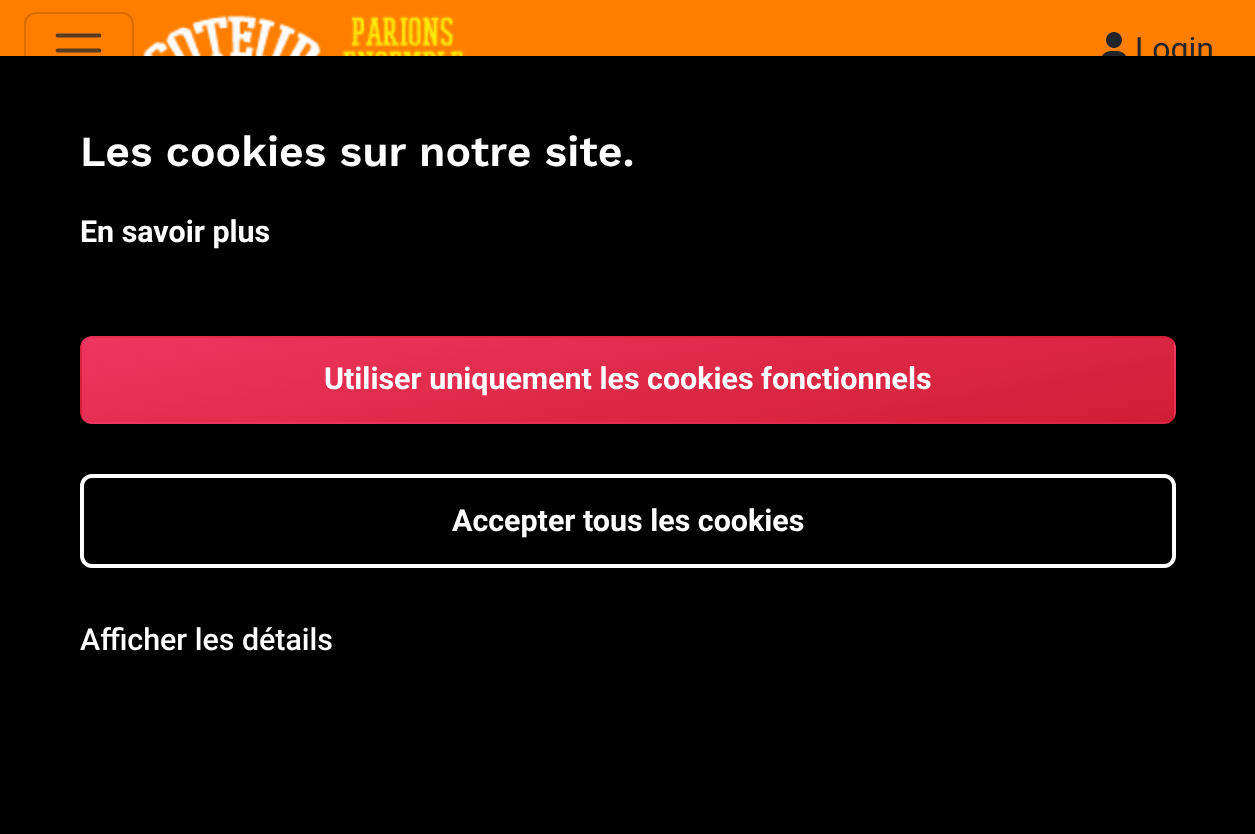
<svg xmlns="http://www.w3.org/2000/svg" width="1255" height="834">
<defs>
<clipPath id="clip1"><rect x="80" y="336" width="1096" height="88" rx="12"/></clipPath>
<linearGradient id="g1" gradientUnits="userSpaceOnUse" x1="655" y1="437" x2="601" y2="155"><stop offset="0" stop-color="#cf1e34"/><stop offset="1" stop-color="#ee365f"/></linearGradient>
<linearGradient id="g2" gradientUnits="userSpaceOnUse" x1="-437" y1="521" x2="-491" y2="239"><stop offset="0" stop-color="#cf1e34"/><stop offset="1" stop-color="#ee365f"/></linearGradient>
<linearGradient id="g3" gradientUnits="userSpaceOnUse" x1="655" y1="521" x2="601" y2="239"><stop offset="0" stop-color="#cf1e34"/><stop offset="1" stop-color="#ee365f"/></linearGradient>
<linearGradient id="g4" gradientUnits="userSpaceOnUse" x1="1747" y1="521" x2="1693" y2="239"><stop offset="0" stop-color="#cf1e34"/><stop offset="1" stop-color="#ee365f"/></linearGradient>
<linearGradient id="g5" gradientUnits="userSpaceOnUse" x1="655" y1="605" x2="601" y2="323"><stop offset="0" stop-color="#cf1e34"/><stop offset="1" stop-color="#ee365f"/></linearGradient>
</defs>
<rect width="100%" height="100%" fill="#ff7e00"/>
<rect x="25" y="13" width="108" height="74" rx="11" fill="none" stroke="#d96b00" stroke-width="2"/>
<path d="M57.5 35.5h42m-42 15h42m-42 15h42" fill="none" stroke="#593b1f" stroke-width="3.8" stroke-linecap="round"/>
<image x="143" y="15" width="322" height="41" href="media/1.png"/>
<image x="1102" y="32" width="24" height="24" href="media/2.png"/>
<text x="1135" y="60" style="font-family:Roboto;font-size:32px;fill:#212529">Login</text>
<rect y="56" width="1255" height="778" fill="#000"/>
<text x="80" y="166" style="font-family:Work Sans;font-size:42.75px;font-weight:600;fill:#fff">Les cookies sur notre site.</text>
<text x="80" y="242" style="font-family:Roboto;font-size:30.4px;font-weight:bold;fill:#fff">En savoir plus</text>
<g clip-path="url(#clip1)">
<rect x="82" y="336" width="1092" height="2" fill="url(#g1)"/>
<rect x="80" y="338" width="2" height="84" fill="url(#g2)"/>
<rect x="82" y="338" width="1092" height="84" fill="url(#g3)"/>
<rect x="1174" y="338" width="2" height="84" fill="url(#g4)"/>
<rect x="82" y="422" width="1092" height="2" fill="url(#g5)"/>
</g>
<text x="324" y="389" style="font-family:Roboto;font-size:30.4px;font-weight:bold;fill:#fff">Utiliser uniquement les cookies fonctionnels</text>
<rect x="82" y="476" width="1092" height="90" rx="10" fill="none" stroke="#fff" stroke-width="4"/>
<text x="452" y="531" style="font-family:Roboto;font-size:30.4px;font-weight:bold;fill:#fff">Accepter tous les cookies</text>
<text x="80" y="650" style="font-family:Roboto;font-size:30.4px;font-weight:500;fill:#fff">Afficher les détails</text>
</svg>
